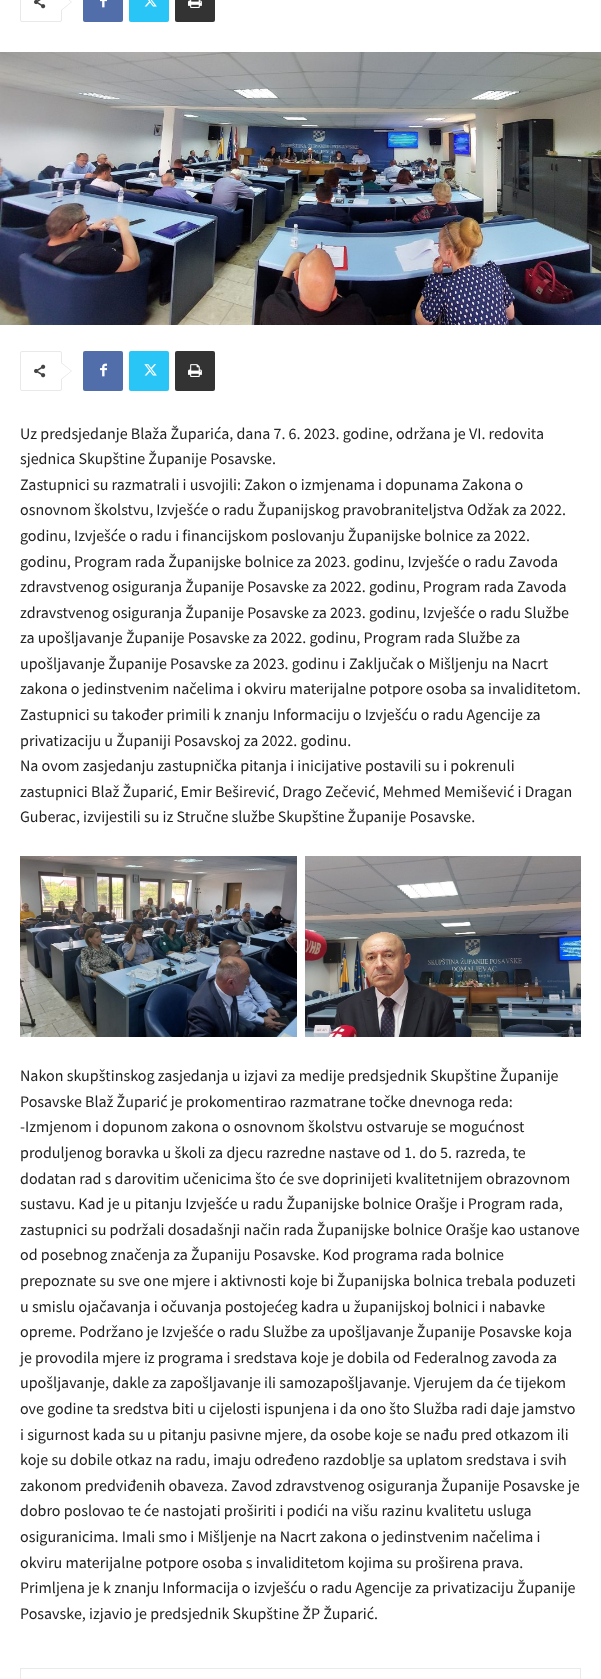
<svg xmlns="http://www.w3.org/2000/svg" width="601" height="1679">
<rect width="100%" height="100%" fill="#fff"/>
<rect x="20.5" y="-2.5" width="41" height="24" rx="1.5" fill="none" stroke="#e9e9e9"/>
<image x="34" y="0" width="12" height="9" href="media/1.png"/>
<path d="M61 11v-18l11 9z" fill="#e9e9e9"/>
<path d="M61 10v-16l10 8z" fill="#fff"/>
<rect x="83" y="-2" width="40" height="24" rx="2" fill="#516eab"/>
<image x="100" y="0" width="7" height="8" href="media/2.png"/>
<rect x="129" y="-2" width="40" height="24" rx="2" fill="#29c5f6"/>
<image x="144" y="0" width="13" height="7" href="media/3.png"/>
<rect x="175" y="-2" width="40" height="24" rx="2" fill="#333"/>
<image x="188" y="0" width="14" height="8" href="media/4.png"/>
<image x="0" y="52" width="601" height="273" href="media/5.png"/>
<rect x="20.5" y="351.5" width="41" height="39" rx="1.5" fill="none" stroke="#e9e9e9"/>
<path d="M61 380v-18l11 9z" fill="#e9e9e9"/>
<image x="34" y="364" width="12" height="14" href="media/6.png"/>
<path d="M61 379v-16l10 8z" fill="#fff"/>
<rect x="83" y="351" width="40" height="40" rx="2" fill="#516eab"/>
<image x="100" y="363" width="7" height="14" href="media/7.png"/>
<rect x="129" y="351" width="40" height="40" rx="2" fill="#29c5f6"/>
<image x="144" y="364" width="13" height="12" href="media/8.png"/>
<rect x="175" y="351" width="40" height="40" rx="2" fill="#333"/>
<image x="188" y="364" width="14" height="13" href="media/9.png"/>
<text x="20" y="439" style="font-family:Source Sans Pro;font-size:16px;fill:#222">Uz predsjedanje Blaža Župarića, dana 7. 6. 2023. godine, održana je VI. redovita</text>
<text x="20" y="464" style="font-family:Source Sans Pro;font-size:16px;fill:#222">sjednica Skupštine Županije Posavske.</text>
<text x="20" y="490" style="font-family:Source Sans Pro;font-size:16px;fill:#222">Zastupnici su razmatrali i usvojili: Zakon o izmjenama i dopunama Zakona o</text>
<text x="20" y="515" style="font-family:Source Sans Pro;font-size:16px;fill:#222">osnovnom školstvu, Izvješće o radu Županijskog pravobraniteljstva Odžak za 2022.</text>
<text x="20" y="541" style="font-family:Source Sans Pro;font-size:16px;fill:#222">godinu, Izvješće o radu i financijskom poslovanju Županijske bolnice za 2022.</text>
<text x="20" y="567" style="font-family:Source Sans Pro;font-size:16px;fill:#222">godinu, Program rada Županijske bolnice za 2023. godinu, Izvješće o radu Zavoda</text>
<text x="20" y="592" style="font-family:Source Sans Pro;font-size:16px;fill:#222">zdravstvenog osiguranja Županije Posavske za 2022. godinu, Program rada Zavoda</text>
<text x="20" y="618" style="font-family:Source Sans Pro;font-size:16px;fill:#222">zdravstvenog osiguranja Županije Posavske za 2023. godinu, Izvješće o radu Službe</text>
<text x="20" y="643" style="font-family:Source Sans Pro;font-size:16px;fill:#222">za upošljavanje Županije Posavske za 2022. godinu, Program rada Službe za</text>
<text x="20" y="669" style="font-family:Source Sans Pro;font-size:16px;fill:#222">upošljavanje Županije Posavske za 2023. godinu i Zaključak o Mišljenju na Nacrt</text>
<text x="20" y="694" style="font-family:Source Sans Pro;font-size:16px;fill:#222">zakona o jedinstvenim načelima i okviru materijalne potpore osoba sa invaliditetom.</text>
<text x="20" y="720" style="font-family:Source Sans Pro;font-size:16px;fill:#222">Zastupnici su također primili k znanju Informaciju o Izvješću o radu Agencije za</text>
<text x="20" y="746" style="font-family:Source Sans Pro;font-size:16px;fill:#222">privatizaciju u Županiji Posavskoj za 2022. godinu.</text>
<text x="20" y="771" style="font-family:Source Sans Pro;font-size:16px;fill:#222">Na ovom zasjedanju zastupnička pitanja i inicijative postavili su i pokrenuli</text>
<text x="20" y="797" style="font-family:Source Sans Pro;font-size:16px;fill:#222">zastupnici Blaž Župarić, Emir Beširević, Drago Zečević, Mehmed Memišević i Dragan</text>
<text x="20" y="822" style="font-family:Source Sans Pro;font-size:16px;fill:#222">Guberac, izvijestili su iz Stručne službe Skupštine Županije Posavske.</text>
<image x="20" y="856" width="277" height="181" href="media/10.png"/>
<image x="305" y="856" width="276" height="181" href="media/11.png"/>
<text x="20" y="1081" style="font-family:Source Sans Pro;font-size:16px;fill:#222">Nakon skupštinskog zasjedanja u izjavi za medije predsjednik Skupštine Županije</text>
<text x="20" y="1107" style="font-family:Source Sans Pro;font-size:16px;fill:#222">Posavske Blaž Župarić je prokomentirao razmatrane točke dnevnoga reda:</text>
<text x="20" y="1132" style="font-family:Source Sans Pro;font-size:16px;fill:#222">-Izmjenom i dopunom zakona o osnovnom školstvu ostvaruje se mogućnost</text>
<text x="20" y="1158" style="font-family:Source Sans Pro;font-size:16px;fill:#222">produljenog boravka u školi za djecu razredne nastave od 1. do 5. razreda, te</text>
<text x="20" y="1184" style="font-family:Source Sans Pro;font-size:16px;fill:#222">dodatan rad s darovitim učenicima što će sve doprinijeti kvalitetnijem obrazovnom</text>
<text x="20" y="1209" style="font-family:Source Sans Pro;font-size:16px;fill:#222">sustavu. Kad je u pitanju Izvješće u radu Županijske bolnice Orašje i Program rada,</text>
<text x="20" y="1235" style="font-family:Source Sans Pro;font-size:16px;fill:#222">zastupnici su podržali dosadašnji način rada Županijske bolnice Orašje kao ustanove</text>
<text x="20" y="1260" style="font-family:Source Sans Pro;font-size:16px;fill:#222">od posebnog značenja za Županiju Posavske. Kod programa rada bolnice</text>
<text x="20" y="1286" style="font-family:Source Sans Pro;font-size:16px;fill:#222">prepoznate su sve one mjere i aktivnosti koje bi Županijska bolnica trebala poduzeti</text>
<text x="20" y="1312" style="font-family:Source Sans Pro;font-size:16px;fill:#222">u smislu ojačavanja i očuvanja postojećeg kadra u županijskoj bolnici i nabavke</text>
<text x="20" y="1337" style="font-family:Source Sans Pro;font-size:16px;fill:#222">opreme. Podržano je Izvješće o radu Službe za upošljavanje Županije Posavske koja</text>
<text x="20" y="1363" style="font-family:Source Sans Pro;font-size:16px;fill:#222">je provodila mjere iz programa i sredstava koje je dobila od Federalnog zavoda za</text>
<text x="20" y="1388" style="font-family:Source Sans Pro;font-size:16px;fill:#222">upošljavanje, dakle za zapošljavanje ili samozapošljavanje. Vjerujem da će tijekom</text>
<text x="20" y="1414" style="font-family:Source Sans Pro;font-size:16px;fill:#222">ove godine ta sredstva biti u cijelosti ispunjena i da ono što Služba radi daje jamstvo</text>
<text x="20" y="1440" style="font-family:Source Sans Pro;font-size:16px;fill:#222">i sigurnost kada su u pitanju pasivne mjere, da osobe koje se nađu pred otkazom ili</text>
<text x="20" y="1465" style="font-family:Source Sans Pro;font-size:16px;fill:#222">koje su dobile otkaz na radu, imaju određeno razdoblje sa uplatom sredstava i svih</text>
<text x="20" y="1491" style="font-family:Source Sans Pro;font-size:16px;fill:#222">zakonom predviđenih obaveza. Zavod zdravstvenog osiguranja Županije Posavske je</text>
<text x="20" y="1516" style="font-family:Source Sans Pro;font-size:16px;fill:#222">dobro poslovao te će nastojati proširiti i podići na višu razinu kvalitetu usluga</text>
<text x="20" y="1542" style="font-family:Source Sans Pro;font-size:16px;fill:#222">osiguranicima. Imali smo i Mišljenje na Nacrt zakona o jedinstvenim načelima i</text>
<text x="20" y="1568" style="font-family:Source Sans Pro;font-size:16px;fill:#222">okviru materijalne potpore osoba s invaliditetom kojima su proširena prava.</text>
<text x="20" y="1593" style="font-family:Source Sans Pro;font-size:16px;fill:#222">Primljena je k znanju Informacija o izvješću o radu Agencije za privatizaciju Županije</text>
<text x="20" y="1619" style="font-family:Source Sans Pro;font-size:16px;fill:#222">Posavske, izjavio je predsjednik Skupštine ŽP Župarić.</text>
<rect x="20.5" y="1668.5" width="560" height="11" fill="none" stroke="#eaeaea"/>
</svg>
